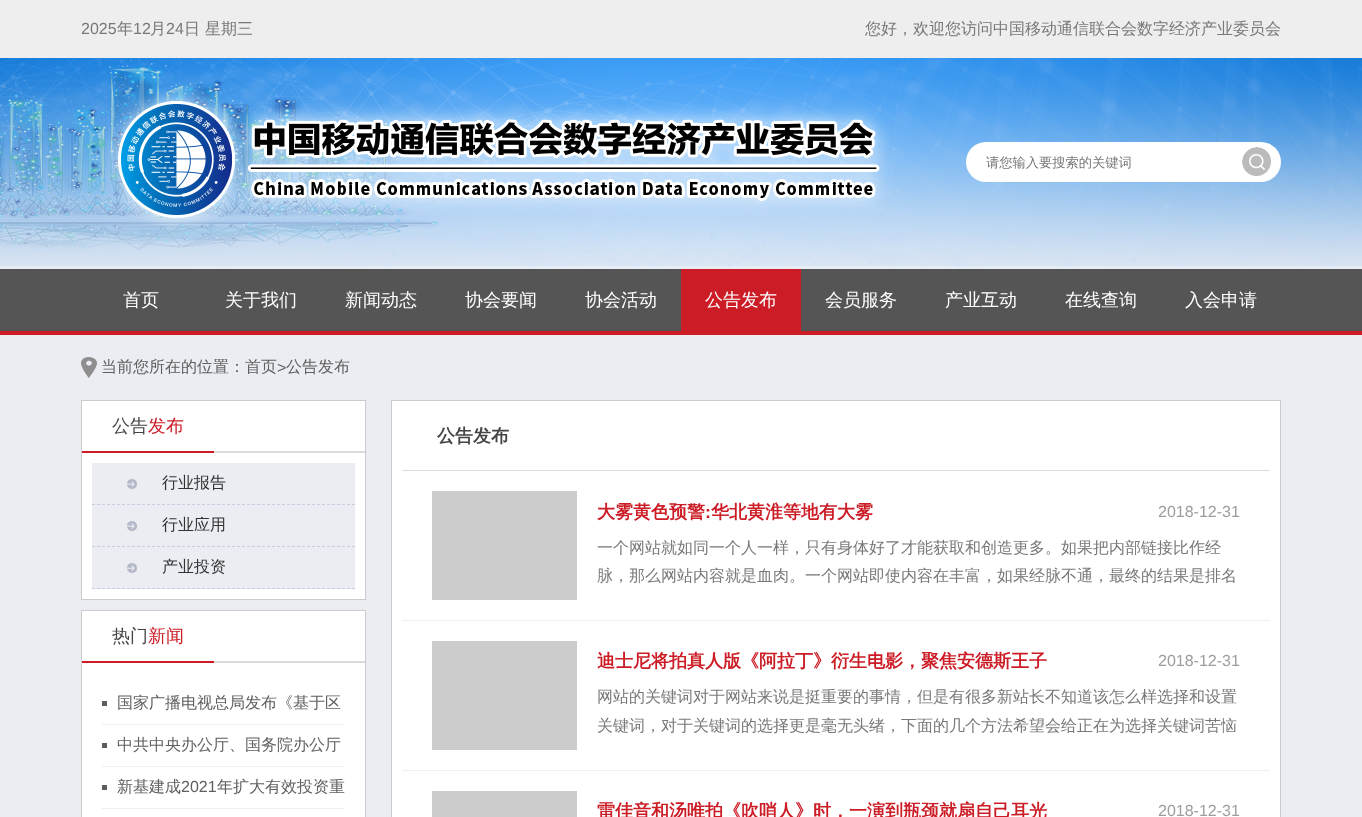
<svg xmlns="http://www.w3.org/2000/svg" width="1362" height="817">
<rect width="100%" height="100%" fill="#ebedf3"/>
<rect width="1362" height="58" fill="#eee"/>
<text x="81" y="34" style="font-family:Liberation Sans;font-size:16px;fill:#787878">2025</text>
<text x="117" y="34" style="font-family:WenQuanYi Zen Hei;font-size:16px;font-weight:500;fill:#787878">年</text>
<text x="133" y="34" style="font-family:Liberation Sans;font-size:16px;fill:#787878">12</text>
<text x="150" y="34" style="font-family:WenQuanYi Zen Hei;font-size:16px;font-weight:500;fill:#787878">月</text>
<text x="166" y="34" style="font-family:Liberation Sans;font-size:16px;fill:#787878">24</text>
<text x="184" y="34" style="font-family:WenQuanYi Zen Hei;font-size:16px;font-weight:500;fill:#787878">日</text>
<text x="205" y="34" style="font-family:WenQuanYi Zen Hei;font-size:16px;font-weight:500;fill:#787878">星期三</text>
<text x="865" y="34" style="font-family:WenQuanYi Zen Hei;font-size:16px;font-weight:500;fill:#787878">您好，欢迎您访问中国移动通信联合会数字经济产业委员会</text>
<image x="0" y="58" width="1362" height="211" href="media/1.png"/>
<rect x="966" y="142" width="315" height="40" rx="20" fill="#fff"/>
<text x="986" y="167" style="font-family:WenQuanYi Zen Hei;font-size:13.25px;font-weight:500;fill:#787878">请您输入要搜索的关键词</text>
<image x="1242" y="147" width="29" height="29" href="media/2.png"/>
<rect y="269" width="1362" height="62" fill="#555"/>
<rect y="331" width="1362" height="4" fill="#cc1c26"/>
<text x="123" y="306" style="font-family:WenQuanYi Zen Hei;font-size:18px;font-weight:500;fill:#fff">首页</text>
<text x="225" y="306" style="font-family:WenQuanYi Zen Hei;font-size:18px;font-weight:500;fill:#fff">关于我们</text>
<text x="345" y="306" style="font-family:WenQuanYi Zen Hei;font-size:18px;font-weight:500;fill:#fff">新闻动态</text>
<text x="465" y="306" style="font-family:WenQuanYi Zen Hei;font-size:18px;font-weight:500;fill:#fff">协会要闻</text>
<text x="585" y="306" style="font-family:WenQuanYi Zen Hei;font-size:18px;font-weight:500;fill:#fff">协会活动</text>
<rect x="681" y="269" width="120" height="62" fill="#cc1c26"/>
<text x="705" y="306" style="font-family:WenQuanYi Zen Hei;font-size:18px;font-weight:500;fill:#fff">公告发布</text>
<text x="825" y="306" style="font-family:WenQuanYi Zen Hei;font-size:18px;font-weight:500;fill:#fff">会员服务</text>
<text x="945" y="306" style="font-family:WenQuanYi Zen Hei;font-size:18px;font-weight:500;fill:#fff">产业互动</text>
<text x="1065" y="306" style="font-family:WenQuanYi Zen Hei;font-size:18px;font-weight:500;fill:#fff">在线查询</text>
<text x="1185" y="306" style="font-family:WenQuanYi Zen Hei;font-size:18px;font-weight:500;fill:#fff">入会申请</text>
<image x="81" y="357" width="16" height="21" href="media/3.png"/>
<text x="101" y="372" style="font-family:WenQuanYi Zen Hei;font-size:16px;font-weight:500;fill:#606060">当前您所在的位置：首页</text>
<text x="277" y="373" style="font-family:Liberation Sans;font-size:16px;fill:#606060">&gt;</text>
<text x="286" y="372" style="font-family:WenQuanYi Zen Hei;font-size:16px;font-weight:500;fill:#606060">公告发布</text>
<rect x="81.5" y="400.5" width="284" height="199" fill="#fff" stroke="#cccccd"/>
<rect x="214" y="451" width="151" height="2" fill="#dbdbdb"/>
<text x="112" y="432" style="font-family:WenQuanYi Zen Hei;font-size:18px;font-weight:500;fill:#444">公告</text>
<text x="148" y="432" style="font-family:WenQuanYi Zen Hei;font-size:18px;font-weight:500;fill:#cc1c26">发布</text>
<rect x="82" y="451" width="132" height="2" fill="#cc1c26"/>
<rect x="92" y="463" width="263" height="126" fill="#ebedf3"/>
<image x="127" y="479" width="10" height="10" href="media/4.png"/>
<path d="M92 504.5h263" fill="none" stroke="#c7cde1" stroke-dasharray="3 2"/>
<text x="162" y="488" style="font-family:WenQuanYi Zen Hei;font-size:16px;font-weight:500;fill:#333">行业报告</text>
<image x="127" y="521" width="10" height="10" href="media/4.png"/>
<path d="M92 546.5h263" fill="none" stroke="#c7cde1" stroke-dasharray="3 2"/>
<text x="162" y="530" style="font-family:WenQuanYi Zen Hei;font-size:16px;font-weight:500;fill:#333">行业应用</text>
<image x="127" y="563" width="10" height="10" href="media/4.png"/>
<path d="M92 588.5h263" fill="none" stroke="#c7cde1" stroke-dasharray="3 2"/>
<text x="162" y="572" style="font-family:WenQuanYi Zen Hei;font-size:16px;font-weight:500;fill:#333">产业投资</text>
<rect x="81.5" y="610.5" width="284" height="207" fill="#fff" stroke="#cccccd"/>
<rect x="214" y="661" width="151" height="2" fill="#dbdbdb"/>
<text x="112" y="642" style="font-family:WenQuanYi Zen Hei;font-size:18px;font-weight:500;fill:#444">热门</text>
<text x="148" y="642" style="font-family:WenQuanYi Zen Hei;font-size:18px;font-weight:500;fill:#cc1c26">新闻</text>
<rect x="82" y="661" width="132" height="2" fill="#cc1c26"/>
<rect x="102" y="701" width="5" height="5" fill="#5d5d5d"/>
<rect x="102" y="724" width="243" height="1" fill="#efefef"/>
<text x="117" y="708" style="font-family:WenQuanYi Zen Hei;font-size:16px;font-weight:500;fill:#606060">国家广播电视总局发布《基于区</text>
<rect x="102" y="743" width="5" height="5" fill="#5d5d5d"/>
<rect x="102" y="766" width="243" height="1" fill="#efefef"/>
<text x="117" y="750" style="font-family:WenQuanYi Zen Hei;font-size:16px;font-weight:500;fill:#606060">中共中央办公厅、国务院办公厅</text>
<rect x="102" y="785" width="5" height="5" fill="#5d5d5d"/>
<rect x="102" y="808" width="243" height="1" fill="#efefef"/>
<text x="117" y="792" style="font-family:WenQuanYi Zen Hei;font-size:16px;font-weight:500;fill:#606060">新基建成</text>
<text x="181" y="792" style="font-family:Liberation Sans;font-size:16px;fill:#606060">2021</text>
<text x="217" y="792" style="font-family:WenQuanYi Zen Hei;font-size:16px;font-weight:500;fill:#606060">年扩大有效投资重</text>
<rect x="391.5" y="400.5" width="889" height="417" fill="#fff" stroke="#cccccd"/>
<rect x="402" y="470" width="868" height="1" fill="#dbdbdb"/>
<text x="437" y="442" style="font-family:WenQuanYi Zen Hei;font-size:18px;font-weight:bold;fill:#444">公告发布</text>
<rect x="402" y="620" width="868" height="1" fill="#efefef"/>
<rect x="432" y="491" width="145" height="109" fill="#ccc"/>
<text x="597" y="518" style="font-family:WenQuanYi Zen Hei;font-size:18px;font-weight:bold;fill:#cc1c26">大雾黄色预警</text>
<text x="705" y="518" style="font-family:Liberation Sans;font-size:18px;font-weight:bold;fill:#cc1c26">:</text>
<text x="711" y="518" style="font-family:WenQuanYi Zen Hei;font-size:18px;font-weight:bold;fill:#cc1c26">华北黄淮等地有大雾</text>
<text x="1158" y="517" style="font-family:Liberation Sans;font-size:16px;fill:#9d9d9d">2018-12-31</text>
<text x="597" y="553" style="font-family:WenQuanYi Zen Hei;font-size:16px;font-weight:500;fill:#787878">一个网站就如同一个人一样，只有身体好了才能获取和创造更多。如果把内部链接比作经</text>
<text x="597" y="581" style="font-family:WenQuanYi Zen Hei;font-size:16px;font-weight:500;fill:#787878">脉，那么网站内容就是血肉。一个网站即使内容在丰富，如果经脉不通，最终的结果是排名</text>
<rect x="402" y="770" width="868" height="1" fill="#efefef"/>
<rect x="432" y="641" width="145" height="109" fill="#ccc"/>
<text x="597" y="667" style="font-family:WenQuanYi Zen Hei;font-size:18px;font-weight:bold;fill:#cc1c26">迪士尼将拍真人版《阿拉丁》衍生电影，聚焦安德斯王子</text>
<text x="1158" y="666" style="font-family:Liberation Sans;font-size:16px;fill:#9d9d9d">2018-12-31</text>
<text x="597" y="702" style="font-family:WenQuanYi Zen Hei;font-size:16px;font-weight:500;fill:#787878">网站的关键词对于网站来说是挺重要的事情，但是有很多新站长不知道该怎么样选择和设置</text>
<text x="597" y="731" style="font-family:WenQuanYi Zen Hei;font-size:16px;font-weight:500;fill:#787878">关键词，对于关键词的选择更是毫无头绪，下面的几个方法希望会给正在为选择关键词苦恼</text>
<rect x="432" y="791" width="145" height="26" fill="#ccc"/>
<text x="597" y="817" style="font-family:WenQuanYi Zen Hei;font-size:18px;font-weight:bold;fill:#cc1c26">雷佳音和汤唯拍《吹哨人》时，一演到瓶颈就扇自己耳光</text>
<text x="1158" y="816" style="font-family:Liberation Sans;font-size:16px;fill:#9d9d9d">2018-12-31</text>
</svg>
